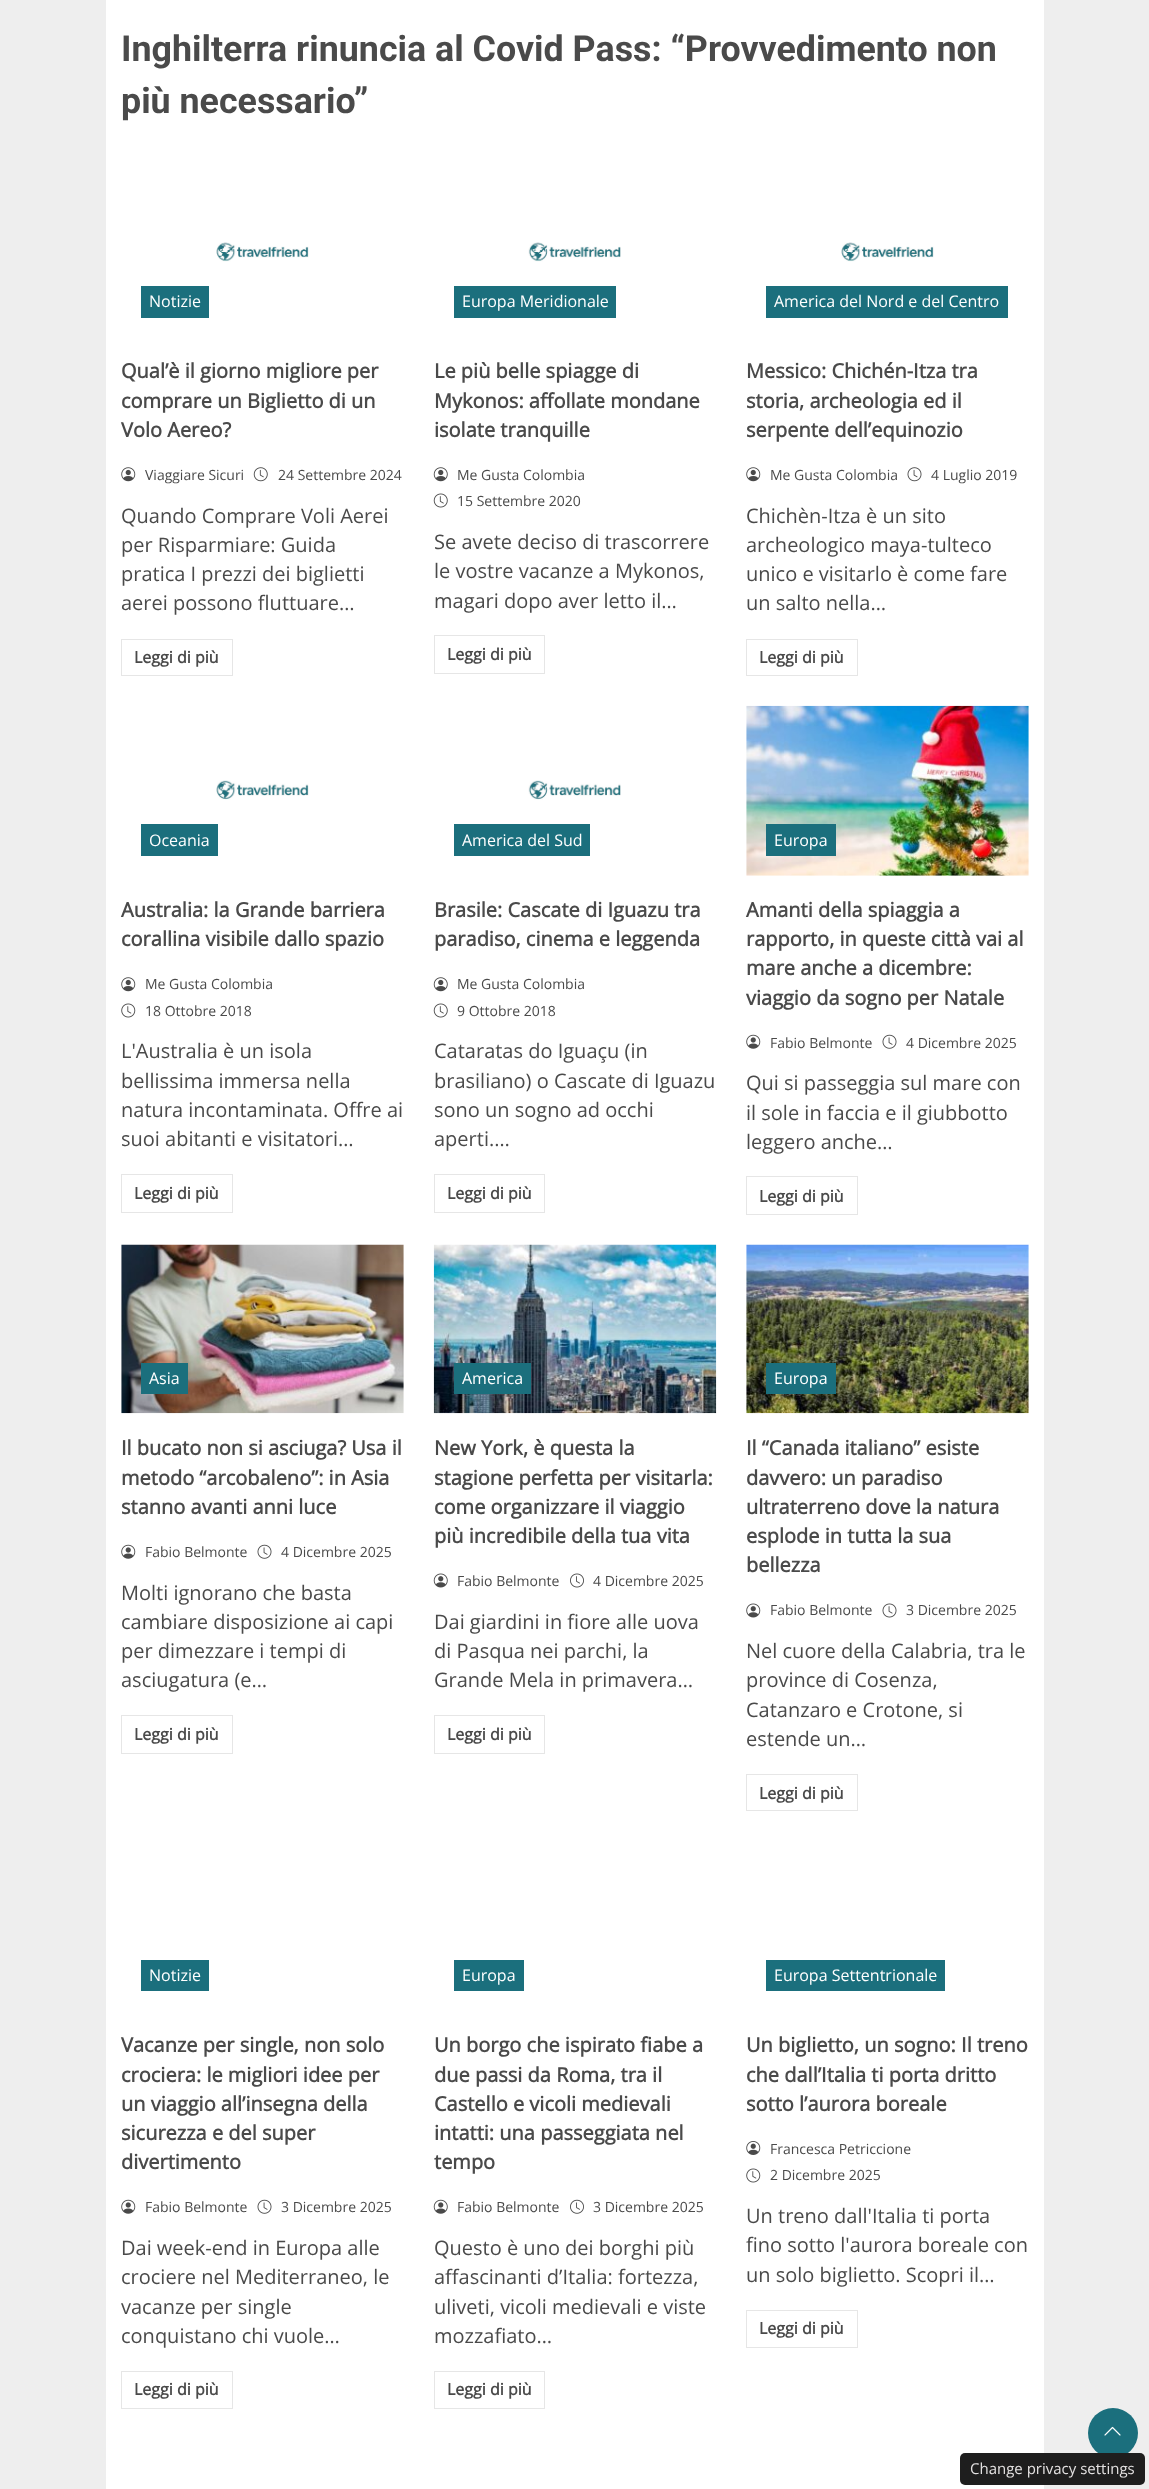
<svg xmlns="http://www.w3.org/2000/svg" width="1149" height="2489">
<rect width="100%" height="100%" fill="#eee"/>
<rect x="106" width="938" height="2489" fill="#fff"/>
<text x="121" y="61" style="font-family:Roboto;font-size:35.8px;font-weight:bold;fill:#4a4a4a">Inghilterra rinuncia al Covid Pass: “Provvedimento non</text>
<text x="121" y="113" style="font-family:Roboto;font-size:35.8px;font-weight:bold;fill:#4a4a4a">più necessario”</text>
<image x="216" y="242" width="93" height="20" href="media/1.png"/>
<rect x="141" y="286" width="68" height="32" fill="#1b6f7d"/>
<text x="149" y="307" style="font-family:Open Sans;font-size:16px;fill:#fff">Notizie</text>
<text x="121" y="378" style="font-family:Open Sans;font-size:20px;font-weight:bold;fill:#4a4a4a">Qual’è il giorno migliore per</text>
<text x="121" y="408" style="font-family:Open Sans;font-size:20px;font-weight:bold;fill:#4a4a4a">comprare un Biglietto di un</text>
<text x="121" y="437" style="font-family:Open Sans;font-size:20px;font-weight:bold;fill:#4a4a4a">Volo Aereo?</text>
<image x="121" y="467" width="15" height="15" href="media/2.png"/>
<text x="145" y="480" style="font-family:Open Sans;font-size:14px;fill:#4a4a4a">Viaggiare Sicuri</text>
<image x="253" y="467" width="15" height="15" href="media/3.png"/>
<text x="278" y="480" style="font-family:Open Sans;font-size:14px;fill:#4a4a4a">24 Settembre 2024</text>
<text x="121" y="523" style="font-family:Open Sans;font-size:20px;fill:#4a4a4a">Quando Comprare Voli Aerei</text>
<text x="121" y="552" style="font-family:Open Sans;font-size:20px;fill:#4a4a4a">per Risparmiare: Guida</text>
<text x="121" y="581" style="font-family:Open Sans;font-size:20px;fill:#4a4a4a">pratica I prezzi dei biglietti</text>
<text x="121" y="610" style="font-family:Open Sans;font-size:20px;fill:#4a4a4a">aerei possono fluttuare…</text>
<rect x="121.5" y="639.5" width="111" height="36" fill="none" stroke="#e6e6e6"/>
<text x="134" y="663" style="font-family:Open Sans;font-size:16px;font-weight:bold;fill:#4a4a4a">Leggi di più</text>
<image x="528" y="242" width="93" height="20" href="media/4.png"/>
<rect x="454" y="286" width="162" height="32" fill="#1b6f7d"/>
<text x="462" y="307" style="font-family:Open Sans;font-size:16px;fill:#fff">Europa Meridionale</text>
<text x="434" y="378" style="font-family:Open Sans;font-size:20px;font-weight:bold;fill:#4a4a4a">Le più belle spiagge di</text>
<text x="434" y="408" style="font-family:Open Sans;font-size:20px;font-weight:bold;fill:#4a4a4a">Mykonos: affollate mondane</text>
<text x="434" y="437" style="font-family:Open Sans;font-size:20px;font-weight:bold;fill:#4a4a4a">isolate tranquille</text>
<image x="433" y="467" width="15" height="15" href="media/5.png"/>
<text x="457" y="480" style="font-family:Open Sans;font-size:14px;fill:#4a4a4a">Me Gusta Colombia</text>
<image x="433" y="493" width="15" height="15" href="media/6.png"/>
<text x="457" y="506" style="font-family:Open Sans;font-size:14px;fill:#4a4a4a">15 Settembre 2020</text>
<text x="434" y="549" style="font-family:Open Sans;font-size:20px;fill:#4a4a4a">Se avete deciso di trascorrere</text>
<text x="434" y="578" style="font-family:Open Sans;font-size:20px;fill:#4a4a4a">le vostre vacanze a Mykonos,</text>
<text x="434" y="608" style="font-family:Open Sans;font-size:20px;fill:#4a4a4a">magari dopo aver letto il…</text>
<rect x="434.5" y="635.5" width="110" height="38" fill="none" stroke="#e6e6e6"/>
<text x="447" y="660" style="font-family:Open Sans;font-size:16px;font-weight:bold;fill:#4a4a4a">Leggi di più</text>
<image x="841" y="242" width="93" height="20" href="media/7.png"/>
<rect x="766" y="286" width="242" height="32" fill="#1b6f7d"/>
<text x="774" y="307" style="font-family:Open Sans;font-size:16px;fill:#fff">America del Nord e del Centro</text>
<text x="746" y="378" style="font-family:Open Sans;font-size:20px;font-weight:bold;fill:#4a4a4a">Messico: Chichén-Itza tra</text>
<text x="746" y="408" style="font-family:Open Sans;font-size:20px;font-weight:bold;fill:#4a4a4a">storia, archeologia ed il</text>
<text x="746" y="437" style="font-family:Open Sans;font-size:20px;font-weight:bold;fill:#4a4a4a">serpente dell’equinozio</text>
<image x="746" y="467" width="15" height="15" href="media/2.png"/>
<text x="770" y="480" style="font-family:Open Sans;font-size:14px;fill:#4a4a4a">Me Gusta Colombia</text>
<image x="907" y="467" width="15" height="15" href="media/8.png"/>
<text x="931" y="480" style="font-family:Open Sans;font-size:14px;fill:#4a4a4a">4 Luglio 2019</text>
<text x="746" y="523" style="font-family:Open Sans;font-size:20px;fill:#4a4a4a">Chichèn-Itza è un sito</text>
<text x="746" y="552" style="font-family:Open Sans;font-size:20px;fill:#4a4a4a">archeologico maya-tulteco</text>
<text x="746" y="581" style="font-family:Open Sans;font-size:20px;fill:#4a4a4a">unico e visitarlo è come fare</text>
<text x="746" y="610" style="font-family:Open Sans;font-size:20px;fill:#4a4a4a">un salto nella…</text>
<rect x="746.5" y="639.5" width="111" height="36" fill="none" stroke="#e6e6e6"/>
<text x="759" y="663" style="font-family:Open Sans;font-size:16px;font-weight:bold;fill:#4a4a4a">Leggi di più</text>
<image x="216" y="780" width="93" height="20" href="media/9.png"/>
<rect x="141" y="824" width="77" height="32" fill="#1b6f7d"/>
<text x="149" y="846" style="font-family:Open Sans;font-size:16px;fill:#fff">Oceania</text>
<text x="121" y="917" style="font-family:Open Sans;font-size:20px;font-weight:bold;fill:#4a4a4a">Australia: la Grande barriera</text>
<text x="121" y="946" style="font-family:Open Sans;font-size:20px;font-weight:bold;fill:#4a4a4a">corallina visibile dallo spazio</text>
<image x="121" y="977" width="15" height="15" href="media/2.png"/>
<text x="145" y="989" style="font-family:Open Sans;font-size:14px;fill:#4a4a4a">Me Gusta Colombia</text>
<image x="121" y="1003" width="15" height="15" href="media/10.png"/>
<text x="145" y="1016" style="font-family:Open Sans;font-size:14px;fill:#4a4a4a">18 Ottobre 2018</text>
<text x="121" y="1058" style="font-family:Open Sans;font-size:20px;fill:#4a4a4a">L'Australia è un isola</text>
<text x="121" y="1088" style="font-family:Open Sans;font-size:20px;fill:#4a4a4a">bellissima immersa nella</text>
<text x="121" y="1117" style="font-family:Open Sans;font-size:20px;fill:#4a4a4a">natura incontaminata. Offre ai</text>
<text x="121" y="1146" style="font-family:Open Sans;font-size:20px;fill:#4a4a4a">suoi abitanti e visitatori…</text>
<rect x="121.5" y="1174.5" width="111" height="38" fill="none" stroke="#e6e6e6"/>
<text x="134" y="1199" style="font-family:Open Sans;font-size:16px;font-weight:bold;fill:#4a4a4a">Leggi di più</text>
<image x="528" y="780" width="93" height="20" href="media/11.png"/>
<rect x="454" y="824" width="136" height="32" fill="#1b6f7d"/>
<text x="462" y="846" style="font-family:Open Sans;font-size:16px;fill:#fff">America del Sud</text>
<text x="434" y="917" style="font-family:Open Sans;font-size:20px;font-weight:bold;fill:#4a4a4a">Brasile: Cascate di Iguazu tra</text>
<text x="434" y="946" style="font-family:Open Sans;font-size:20px;font-weight:bold;fill:#4a4a4a">paradiso, cinema e leggenda</text>
<image x="433" y="977" width="15" height="15" href="media/5.png"/>
<text x="457" y="989" style="font-family:Open Sans;font-size:14px;fill:#4a4a4a">Me Gusta Colombia</text>
<image x="433" y="1003" width="15" height="15" href="media/6.png"/>
<text x="457" y="1016" style="font-family:Open Sans;font-size:14px;fill:#4a4a4a">9 Ottobre 2018</text>
<text x="434" y="1058" style="font-family:Open Sans;font-size:20px;fill:#4a4a4a">Cataratas do Iguaçu (in</text>
<text x="434" y="1088" style="font-family:Open Sans;font-size:20px;fill:#4a4a4a">brasiliano) o Cascate di Iguazu</text>
<text x="434" y="1117" style="font-family:Open Sans;font-size:20px;fill:#4a4a4a">sono un sogno ad occhi</text>
<text x="434" y="1146" style="font-family:Open Sans;font-size:20px;fill:#4a4a4a">aperti.…</text>
<rect x="434.5" y="1174.5" width="110" height="38" fill="none" stroke="#e6e6e6"/>
<text x="447" y="1199" style="font-family:Open Sans;font-size:16px;font-weight:bold;fill:#4a4a4a">Leggi di più</text>
<image x="746" y="705" width="283" height="171" href="media/12.png"/>
<rect x="766" y="824" width="70" height="32" fill="#1b6f7d"/>
<text x="774" y="846" style="font-family:Open Sans;font-size:16px;fill:#fff">Europa</text>
<text x="746" y="917" style="font-family:Open Sans;font-size:20px;font-weight:bold;fill:#4a4a4a">Amanti della spiaggia a</text>
<text x="746" y="946" style="font-family:Open Sans;font-size:20px;font-weight:bold;fill:#4a4a4a">rapporto, in queste città vai al</text>
<text x="746" y="975" style="font-family:Open Sans;font-size:20px;font-weight:bold;fill:#4a4a4a">mare anche a dicembre:</text>
<text x="746" y="1005" style="font-family:Open Sans;font-size:20px;font-weight:bold;fill:#4a4a4a">viaggio da sogno per Natale</text>
<image x="746" y="1034" width="15" height="15" href="media/13.png"/>
<text x="770" y="1048" style="font-family:Open Sans;font-size:14px;fill:#4a4a4a">Fabio Belmonte</text>
<image x="882" y="1034" width="15" height="15" href="media/14.png"/>
<text x="906" y="1048" style="font-family:Open Sans;font-size:14px;fill:#4a4a4a">4 Dicembre 2025</text>
<text x="746" y="1090" style="font-family:Open Sans;font-size:20px;fill:#4a4a4a">Qui si passeggia sul mare con</text>
<text x="746" y="1120" style="font-family:Open Sans;font-size:20px;fill:#4a4a4a">il sole in faccia e il giubbotto</text>
<text x="746" y="1149" style="font-family:Open Sans;font-size:20px;fill:#4a4a4a">leggero anche…</text>
<rect x="746.5" y="1176.5" width="111" height="38" fill="none" stroke="#e6e6e6"/>
<text x="759" y="1202" style="font-family:Open Sans;font-size:16px;font-weight:bold;fill:#4a4a4a">Leggi di più</text>
<image x="121" y="1244" width="283" height="170" href="media/15.png"/>
<rect x="141" y="1363" width="47" height="31" fill="#1b6f7d"/>
<text x="149" y="1384" style="font-family:Open Sans;font-size:16px;fill:#fff">Asia</text>
<text x="121" y="1455" style="font-family:Open Sans;font-size:20px;font-weight:bold;fill:#4a4a4a">Il bucato non si asciuga? Usa il</text>
<text x="121" y="1485" style="font-family:Open Sans;font-size:20px;font-weight:bold;fill:#4a4a4a">metodo “arcobaleno”: in Asia</text>
<text x="121" y="1514" style="font-family:Open Sans;font-size:20px;font-weight:bold;fill:#4a4a4a">stanno avanti anni luce</text>
<image x="121" y="1544" width="15" height="15" href="media/13.png"/>
<text x="145" y="1557" style="font-family:Open Sans;font-size:14px;fill:#4a4a4a">Fabio Belmonte</text>
<image x="257" y="1544" width="15" height="15" href="media/14.png"/>
<text x="281" y="1557" style="font-family:Open Sans;font-size:14px;fill:#4a4a4a">4 Dicembre 2025</text>
<text x="121" y="1600" style="font-family:Open Sans;font-size:20px;fill:#4a4a4a">Molti ignorano che basta</text>
<text x="121" y="1629" style="font-family:Open Sans;font-size:20px;fill:#4a4a4a">cambiare disposizione ai capi</text>
<text x="121" y="1658" style="font-family:Open Sans;font-size:20px;fill:#4a4a4a">per dimezzare i tempi di</text>
<text x="121" y="1687" style="font-family:Open Sans;font-size:20px;fill:#4a4a4a">asciugatura (e…</text>
<rect x="121.5" y="1715.5" width="111" height="38" fill="none" stroke="#e6e6e6"/>
<text x="134" y="1740" style="font-family:Open Sans;font-size:16px;font-weight:bold;fill:#4a4a4a">Leggi di più</text>
<image x="433" y="1244" width="284" height="170" href="media/16.png"/>
<rect x="454" y="1363" width="77" height="31" fill="#1b6f7d"/>
<text x="462" y="1384" style="font-family:Open Sans;font-size:16px;fill:#fff">America</text>
<text x="434" y="1455" style="font-family:Open Sans;font-size:20px;font-weight:bold;fill:#4a4a4a">New York, è questa la</text>
<text x="434" y="1485" style="font-family:Open Sans;font-size:20px;font-weight:bold;fill:#4a4a4a">stagione perfetta per visitarla:</text>
<text x="434" y="1514" style="font-family:Open Sans;font-size:20px;font-weight:bold;fill:#4a4a4a">come organizzare il viaggio</text>
<text x="434" y="1543" style="font-family:Open Sans;font-size:20px;font-weight:bold;fill:#4a4a4a">più incredibile della tua vita</text>
<image x="433" y="1573" width="15" height="15" href="media/17.png"/>
<text x="457" y="1586" style="font-family:Open Sans;font-size:14px;fill:#4a4a4a">Fabio Belmonte</text>
<image x="570" y="1573" width="14" height="15" href="media/18.png"/>
<text x="593" y="1586" style="font-family:Open Sans;font-size:14px;fill:#4a4a4a">4 Dicembre 2025</text>
<text x="434" y="1629" style="font-family:Open Sans;font-size:20px;fill:#4a4a4a">Dai giardini in fiore alle uova</text>
<text x="434" y="1658" style="font-family:Open Sans;font-size:20px;fill:#4a4a4a">di Pasqua nei parchi, la</text>
<text x="434" y="1687" style="font-family:Open Sans;font-size:20px;fill:#4a4a4a">Grande Mela in primavera…</text>
<rect x="434.5" y="1715.5" width="110" height="38" fill="none" stroke="#e6e6e6"/>
<text x="447" y="1740" style="font-family:Open Sans;font-size:16px;font-weight:bold;fill:#4a4a4a">Leggi di più</text>
<image x="746" y="1244" width="283" height="170" href="media/19.png"/>
<rect x="766" y="1363" width="70" height="31" fill="#1b6f7d"/>
<text x="774" y="1384" style="font-family:Open Sans;font-size:16px;fill:#fff">Europa</text>
<text x="746" y="1455" style="font-family:Open Sans;font-size:20px;font-weight:bold;fill:#4a4a4a">Il “Canada italiano” esiste</text>
<text x="746" y="1485" style="font-family:Open Sans;font-size:20px;font-weight:bold;fill:#4a4a4a">davvero: un paradiso</text>
<text x="746" y="1514" style="font-family:Open Sans;font-size:20px;font-weight:bold;fill:#4a4a4a">ultraterreno dove la natura</text>
<text x="746" y="1543" style="font-family:Open Sans;font-size:20px;font-weight:bold;fill:#4a4a4a">esplode in tutta la sua</text>
<text x="746" y="1572" style="font-family:Open Sans;font-size:20px;font-weight:bold;fill:#4a4a4a">bellezza</text>
<image x="746" y="1603" width="15" height="15" href="media/20.png"/>
<text x="770" y="1615" style="font-family:Open Sans;font-size:14px;fill:#4a4a4a">Fabio Belmonte</text>
<image x="882" y="1603" width="15" height="15" href="media/21.png"/>
<text x="906" y="1615" style="font-family:Open Sans;font-size:14px;fill:#4a4a4a">3 Dicembre 2025</text>
<text x="746" y="1658" style="font-family:Open Sans;font-size:20px;fill:#4a4a4a">Nel cuore della Calabria, tra le</text>
<text x="746" y="1687" style="font-family:Open Sans;font-size:20px;fill:#4a4a4a">province di Cosenza,</text>
<text x="746" y="1717" style="font-family:Open Sans;font-size:20px;fill:#4a4a4a">Catanzaro e Crotone, si</text>
<text x="746" y="1746" style="font-family:Open Sans;font-size:20px;fill:#4a4a4a">estende un…</text>
<rect x="746.5" y="1774.5" width="111" height="36" fill="none" stroke="#e6e6e6"/>
<text x="759" y="1799" style="font-family:Open Sans;font-size:16px;font-weight:bold;fill:#4a4a4a">Leggi di più</text>
<rect x="141" y="1960" width="68" height="31" fill="#1b6f7d"/>
<text x="149" y="1981" style="font-family:Open Sans;font-size:16px;fill:#fff">Notizie</text>
<text x="121" y="2052" style="font-family:Open Sans;font-size:20px;font-weight:bold;fill:#4a4a4a">Vacanze per single, non solo</text>
<text x="121" y="2082" style="font-family:Open Sans;font-size:20px;font-weight:bold;fill:#4a4a4a">crociera: le migliori idee per</text>
<text x="121" y="2111" style="font-family:Open Sans;font-size:20px;font-weight:bold;fill:#4a4a4a">un viaggio all’insegna della</text>
<text x="121" y="2140" style="font-family:Open Sans;font-size:20px;font-weight:bold;fill:#4a4a4a">sicurezza e del super</text>
<text x="121" y="2169" style="font-family:Open Sans;font-size:20px;font-weight:bold;fill:#4a4a4a">divertimento</text>
<image x="121" y="2199" width="15" height="15" href="media/13.png"/>
<text x="145" y="2212" style="font-family:Open Sans;font-size:14px;fill:#4a4a4a">Fabio Belmonte</text>
<image x="257" y="2199" width="15" height="15" href="media/14.png"/>
<text x="281" y="2212" style="font-family:Open Sans;font-size:14px;fill:#4a4a4a">3 Dicembre 2025</text>
<text x="121" y="2255" style="font-family:Open Sans;font-size:20px;fill:#4a4a4a">Dai week-end in Europa alle</text>
<text x="121" y="2284" style="font-family:Open Sans;font-size:20px;fill:#4a4a4a">crociere nel Mediterraneo, le</text>
<text x="121" y="2314" style="font-family:Open Sans;font-size:20px;fill:#4a4a4a">vacanze per single</text>
<text x="121" y="2343" style="font-family:Open Sans;font-size:20px;fill:#4a4a4a">conquistano chi vuole…</text>
<rect x="121.5" y="2371.5" width="111" height="37" fill="none" stroke="#e6e6e6"/>
<text x="134" y="2395" style="font-family:Open Sans;font-size:16px;font-weight:bold;fill:#4a4a4a">Leggi di più</text>
<rect x="454" y="1960" width="70" height="31" fill="#1b6f7d"/>
<text x="462" y="1981" style="font-family:Open Sans;font-size:16px;fill:#fff">Europa</text>
<text x="434" y="2052" style="font-family:Open Sans;font-size:20px;font-weight:bold;fill:#4a4a4a">Un borgo che ispirato fiabe a</text>
<text x="434" y="2082" style="font-family:Open Sans;font-size:20px;font-weight:bold;fill:#4a4a4a">due passi da Roma, tra il</text>
<text x="434" y="2111" style="font-family:Open Sans;font-size:20px;font-weight:bold;fill:#4a4a4a">Castello e vicoli medievali</text>
<text x="434" y="2140" style="font-family:Open Sans;font-size:20px;font-weight:bold;fill:#4a4a4a">intatti: una passeggiata nel</text>
<text x="434" y="2169" style="font-family:Open Sans;font-size:20px;font-weight:bold;fill:#4a4a4a">tempo</text>
<image x="433" y="2199" width="15" height="15" href="media/22.png"/>
<text x="457" y="2212" style="font-family:Open Sans;font-size:14px;fill:#4a4a4a">Fabio Belmonte</text>
<image x="570" y="2199" width="14" height="15" href="media/23.png"/>
<text x="593" y="2212" style="font-family:Open Sans;font-size:14px;fill:#4a4a4a">3 Dicembre 2025</text>
<text x="434" y="2255" style="font-family:Open Sans;font-size:20px;fill:#4a4a4a">Questo è uno dei borghi più</text>
<text x="434" y="2284" style="font-family:Open Sans;font-size:20px;fill:#4a4a4a">affascinanti d’Italia: fortezza,</text>
<text x="434" y="2314" style="font-family:Open Sans;font-size:20px;fill:#4a4a4a">uliveti, vicoli medievali e viste</text>
<text x="434" y="2343" style="font-family:Open Sans;font-size:20px;fill:#4a4a4a">mozzafiato…</text>
<rect x="434.5" y="2371.5" width="110" height="37" fill="none" stroke="#e6e6e6"/>
<text x="447" y="2395" style="font-family:Open Sans;font-size:16px;font-weight:bold;fill:#4a4a4a">Leggi di più</text>
<rect x="766" y="1960" width="179" height="31" fill="#1b6f7d"/>
<text x="774" y="1981" style="font-family:Open Sans;font-size:16px;fill:#fff">Europa Settentrionale</text>
<text x="746" y="2052" style="font-family:Open Sans;font-size:20px;font-weight:bold;fill:#4a4a4a">Un biglietto, un sogno: Il treno</text>
<text x="746" y="2082" style="font-family:Open Sans;font-size:20px;font-weight:bold;fill:#4a4a4a">che dall’Italia ti porta dritto</text>
<text x="746" y="2111" style="font-family:Open Sans;font-size:20px;font-weight:bold;fill:#4a4a4a">sotto l’aurora boreale</text>
<image x="746" y="2141" width="15" height="14" href="media/24.png"/>
<text x="770" y="2154" style="font-family:Open Sans;font-size:14px;fill:#4a4a4a">Francesca Petriccione</text>
<image x="746" y="2168" width="15" height="15" href="media/10.png"/>
<text x="770" y="2180" style="font-family:Open Sans;font-size:14px;fill:#4a4a4a">2 Dicembre 2025</text>
<text x="746" y="2223" style="font-family:Open Sans;font-size:20px;fill:#4a4a4a">Un treno dall'Italia ti porta</text>
<text x="746" y="2252" style="font-family:Open Sans;font-size:20px;fill:#4a4a4a">fino sotto l'aurora boreale con</text>
<text x="746" y="2282" style="font-family:Open Sans;font-size:20px;fill:#4a4a4a">un solo biglietto. Scopri il…</text>
<rect x="746.5" y="2310.5" width="111" height="37" fill="none" stroke="#e6e6e6"/>
<text x="759" y="2334" style="font-family:Open Sans;font-size:16px;font-weight:bold;fill:#4a4a4a">Leggi di più</text>
<circle cx="1113" cy="2433" r="25" fill="#1b6f7d"/>
<image x="1104" y="2426" width="17" height="10" href="media/25.png"/>
<rect x="960" y="2453" width="185" height="32" rx="5" fill="#1e1e1e"/>
<text x="970" y="2474" style="font-family:Open Sans;font-size:15px;fill:#e3e1e1">Change privacy settings</text>
</svg>
